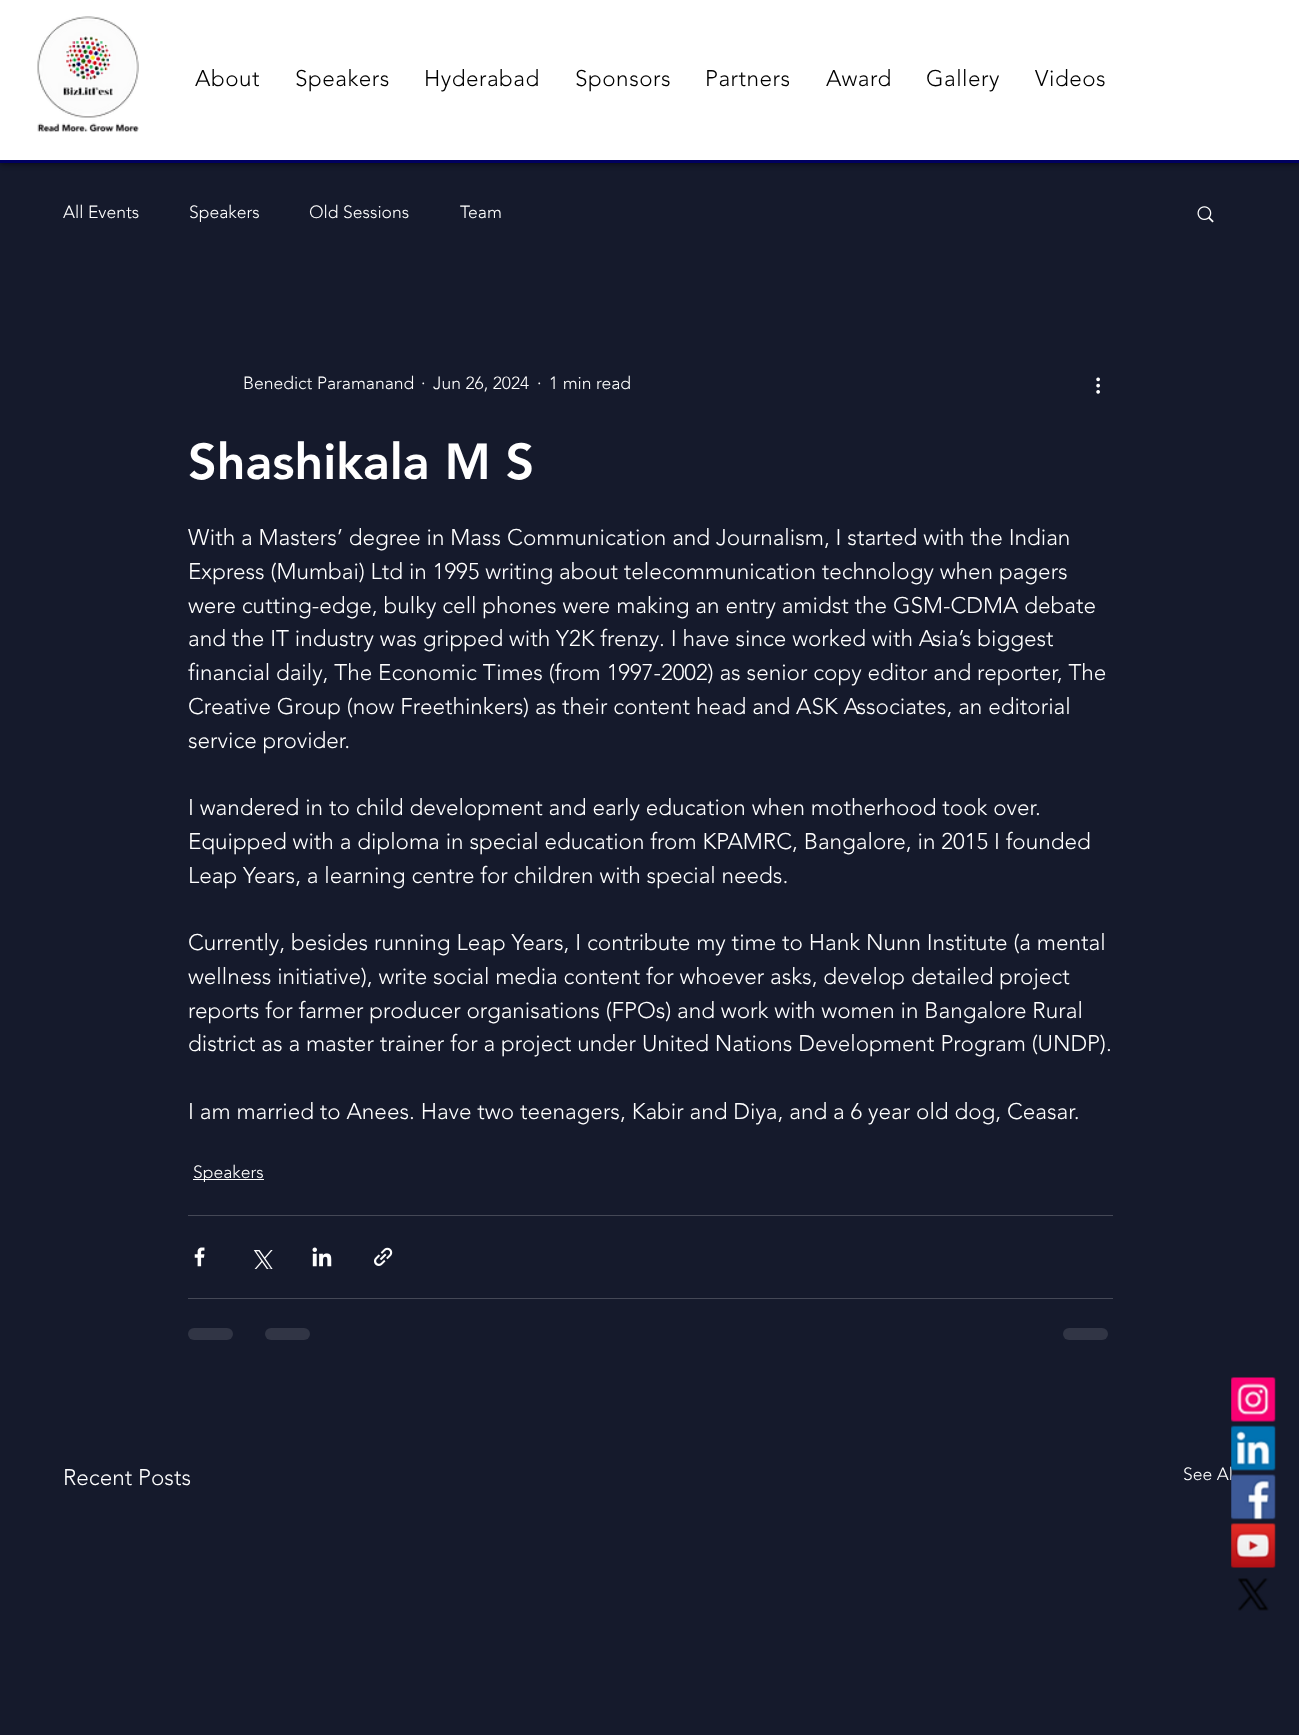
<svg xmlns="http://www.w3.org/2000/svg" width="1299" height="1735">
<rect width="100%" height="100%" fill="#151a2c"/>
<rect width="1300" height="163" fill="#000000b3" filter="blur(3px)"/>
<rect width="1299" height="160" fill="#fff"/>
<rect y="160" width="1299" height="3" fill="#000060"/>
<image x="37" y="16" width="102" height="117" href="media/1.png"/>
<text x="195" y="86" style="font-family:'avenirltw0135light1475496';font-size:22.5px;font-weight:300;letter-spacing:0.5px;fill:#000">About</text>
<text x="295" y="86" style="font-family:'avenirltw0135light1475496';font-size:22.5px;font-weight:300;letter-spacing:0.5px;fill:#000">Speakers</text>
<text x="424" y="86" style="font-family:'avenirltw0135light1475496';font-size:22.5px;font-weight:300;letter-spacing:0.5px;fill:#000">Hyderabad</text>
<text x="575" y="86" style="font-family:'avenirltw0135light1475496';font-size:22.5px;font-weight:300;letter-spacing:0.5px;fill:#000">Sponsors</text>
<text x="705" y="86" style="font-family:'avenirltw0135light1475496';font-size:22.5px;font-weight:300;letter-spacing:0.5px;fill:#000">Partners</text>
<text x="826" y="86" style="font-family:'avenirltw0135light1475496';font-size:22.5px;font-weight:300;letter-spacing:0.5px;fill:#000">Award</text>
<text x="926" y="86" style="font-family:'avenirltw0135light1475496';font-size:22.5px;font-weight:300;letter-spacing:0.5px;fill:#000">Gallery</text>
<text x="1035" y="86" style="font-family:'avenirltw0135light1475496';font-size:22.5px;font-weight:300;letter-spacing:0.5px;fill:#000">Videos</text>
<text x="63" y="218" style="font-family:'avenirltw0135light1475496';font-size:17.5px;font-weight:300;fill:#fff">All Events</text>
<text x="189" y="218" style="font-family:'avenirltw0135light1475496';font-size:17.5px;font-weight:300;fill:#fff">Speakers</text>
<text x="309" y="218" style="font-family:'avenirltw0135light1475496';font-size:17.5px;font-weight:300;fill:#fff">Old Sessions</text>
<text x="460" y="218" style="font-family:'avenirltw0135light1475496';font-size:17.5px;font-weight:300;fill:#fff">Team</text>
<image x="1197" y="206" width="17" height="17" href="media/2.png"/>
<text x="243" y="389" style="font-family:'avenirltw0135light1475496';font-size:17.5px;font-weight:300;fill:#fff">Benedict Paramanand</text>
<text x="421" y="389" style="font-family:'avenirltw0135light1475496';font-size:17.5px;font-weight:300;fill:#fff">·</text>
<text x="433" y="389" style="font-family:'avenirltw0135light1475496';font-size:17.5px;font-weight:300;fill:#fff">Jun 26, 2024</text>
<text x="537" y="389" style="font-family:'avenirltw0135light1475496';font-size:17.5px;font-weight:300;fill:#fff">·</text>
<text x="549" y="389" style="font-family:'avenirltw0135light1475496';font-size:17.5px;font-weight:300;fill:#fff">1 min read</text>
<image x="1096" y="377" width="4" height="17" href="media/3.png"/>
<text x="188" y="479" style="font-family:'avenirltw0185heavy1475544';font-size:50px;font-weight:900;fill:#fff">Shashikala M S</text>
<text x="188" y="545" style="font-family:'avenirltw0135light1475496';font-size:22.5px;font-weight:300;fill:#fff">With a Masters’ degree in Mass Communication and Journalism, I started with the Indian</text>
<text x="188" y="579" style="font-family:'avenirltw0135light1475496';font-size:22.5px;font-weight:300;fill:#fff">Express (Mumbai) Ltd in 1995 writing about telecommunication technology when pagers</text>
<text x="188" y="613" style="font-family:'avenirltw0135light1475496';font-size:22.5px;font-weight:300;fill:#fff">were cutting-edge, bulky cell phones were making an entry amidst the GSM-CDMA debate</text>
<text x="188" y="646" style="font-family:'avenirltw0135light1475496';font-size:22.5px;font-weight:300;fill:#fff">and the IT industry was gripped with Y2K frenzy. I have since worked with Asia’s biggest</text>
<text x="188" y="680" style="font-family:'avenirltw0135light1475496';font-size:22.5px;font-weight:300;fill:#fff">financial daily, The Economic Times (from 1997-2002) as senior copy editor and reporter, The</text>
<text x="188" y="714" style="font-family:'avenirltw0135light1475496';font-size:22.5px;font-weight:300;fill:#fff">Creative Group (now Freethinkers) as their content head and ASK Associates, an editorial</text>
<text x="188" y="748" style="font-family:'avenirltw0135light1475496';font-size:22.5px;font-weight:300;fill:#fff">service provider.</text>
<text x="188" y="815" style="font-family:'avenirltw0135light1475496';font-size:22.5px;font-weight:300;fill:#fff">I wandered in to child development and early education when motherhood took over.</text>
<text x="188" y="849" style="font-family:'avenirltw0135light1475496';font-size:22.5px;font-weight:300;fill:#fff">Equipped with a diploma in special education from KPAMRC, Bangalore, in 2015 I founded</text>
<text x="188" y="883" style="font-family:'avenirltw0135light1475496';font-size:22.5px;font-weight:300;fill:#fff">Leap Years, a learning centre for children with special needs.</text>
<text x="188" y="950" style="font-family:'avenirltw0135light1475496';font-size:22.5px;font-weight:300;fill:#fff">Currently, besides running Leap Years, I contribute my time to Hank Nunn Institute (a mental</text>
<text x="188" y="984" style="font-family:'avenirltw0135light1475496';font-size:22.5px;font-weight:300;fill:#fff">wellness initiative), write social media content for whoever asks, develop detailed project</text>
<text x="188" y="1018" style="font-family:'avenirltw0135light1475496';font-size:22.5px;font-weight:300;fill:#fff">reports for farmer producer organisations (FPOs) and work with women in Bangalore Rural</text>
<text x="188" y="1051" style="font-family:'avenirltw0135light1475496';font-size:22.5px;font-weight:300;fill:#fff">district as a master trainer for a project under United Nations Development Program (UNDP).</text>
<text x="188" y="1119" style="font-family:'avenirltw0135light1475496';font-size:22.5px;font-weight:300;fill:#fff">I am married to Anees. Have two teenagers, Kabir and Diya, and a 6 year old dog, Ceasar.</text>
<rect x="193" y="1179" width="71" height="1" fill="#fff"/>
<text x="193" y="1178" style="font-family:'avenirltw0135light1475496';font-size:17.5px;font-weight:300;fill:#fff">Speakers</text>
<rect x="188" y="1215" width="925" height="1" fill="#444856"/>
<image x="194" y="1247" width="11" height="20" href="media/4.png"/>
<image x="253" y="1250" width="20" height="19" href="media/5.png"/>
<image x="312" y="1247" width="20" height="20" href="media/6.png"/>
<image x="374" y="1247" width="19" height="19" href="media/7.png"/>
<rect x="188" y="1298" width="925" height="1" fill="#444856"/>
<rect x="188" y="1328" width="45" height="12" rx="6" fill="#313545"/>
<rect x="265" y="1328" width="45" height="12" rx="6" fill="#313545"/>
<rect x="1063" y="1328" width="45" height="12" rx="6" fill="#313545"/>
<text x="63" y="1485" style="font-family:'avenirltw0135light1475496';font-size:22.5px;font-weight:300;fill:#fff">Recent Posts</text>
<text x="1183" y="1480" style="font-family:'avenirltw0135light1475496';font-size:17.5px;font-weight:300;fill:#fff">See Al</text>
<image x="1231" y="1377" width="45" height="45" href="media/8.png"/>
<image x="1231" y="1425" width="45" height="46" href="media/9.png"/>
<image x="1231" y="1474" width="45" height="46" href="media/10.png"/>
<image x="1231" y="1523" width="45" height="45" href="media/11.png"/>
<image x="1238" y="1578" width="31" height="33" href="media/12.png"/>
</svg>
